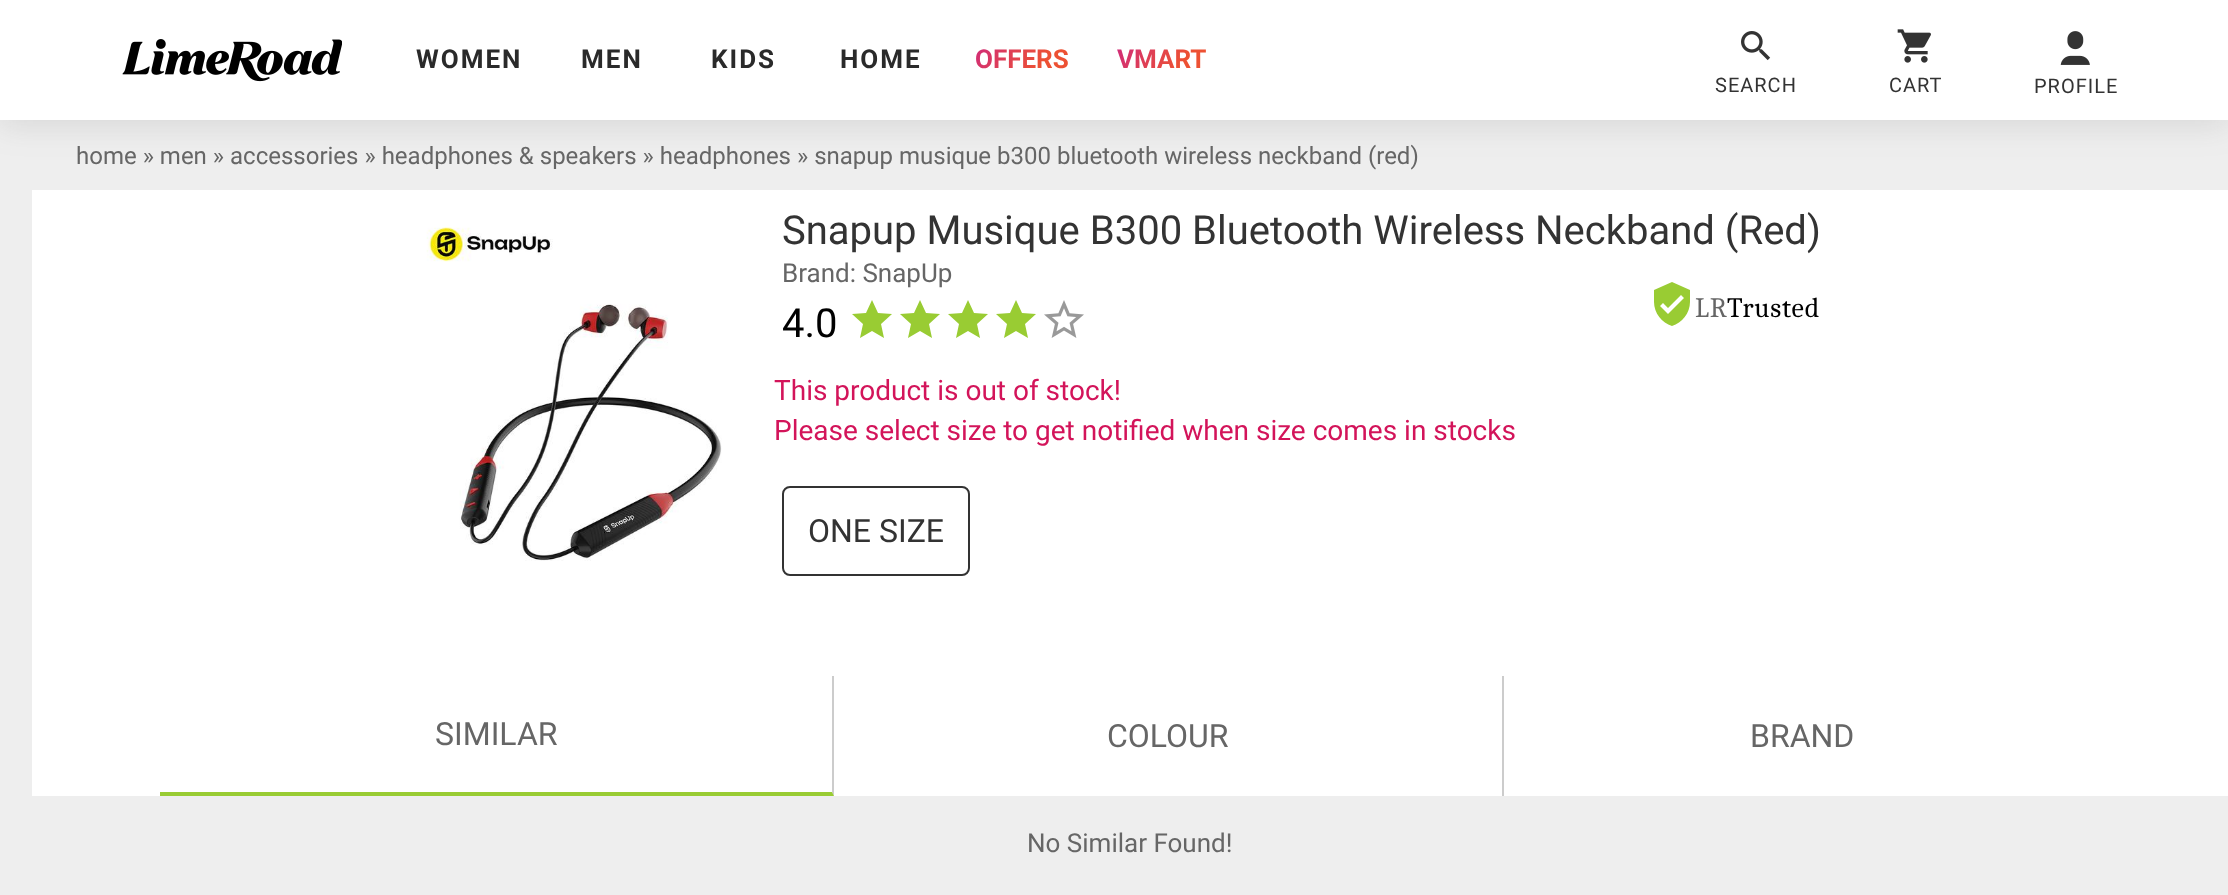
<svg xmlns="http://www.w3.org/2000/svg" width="2228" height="895">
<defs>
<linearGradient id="g1" gradientUnits="userSpaceOnUse" x1="978" y1="30" x2="1062" y2="84"><stop offset="0" stop-color="#ce297e"/><stop offset="0.73" stop-color="#ed5133"/></linearGradient>
<linearGradient id="g2" gradientUnits="userSpaceOnUse" x1="1120" y1="32" x2="1200" y2="83"><stop offset="0" stop-color="#ce297e"/><stop offset="0.73" stop-color="#ed5133"/></linearGradient>
</defs>
<rect width="100%" height="100%" fill="#eee"/>
<rect y="4" width="2228" height="120" fill="#55555529" filter="blur(16px)"/>
<rect width="2228" height="120" fill="#fff"/>
<image x="122" y="39" width="220" height="43" href="media/1.png"/>
<text x="416" y="68" style="font-family:Roboto;font-size:26px;font-weight:bold;letter-spacing:2px;fill:#2a2a2a">WOMEN</text>
<text x="581" y="68" style="font-family:Roboto;font-size:26px;font-weight:bold;letter-spacing:2px;fill:#2a2a2a">MEN</text>
<text x="711" y="68" style="font-family:Roboto;font-size:26px;font-weight:bold;letter-spacing:2px;fill:#2a2a2a">KIDS</text>
<text x="840" y="68" style="font-family:Roboto;font-size:26px;font-weight:bold;letter-spacing:2px;fill:#2a2a2a">HOME</text>
<text x="975" y="68" style="font-family:Roboto;font-size:26px;font-weight:bold;fill:url(#g1)">OFFERS</text>
<text x="1117" y="68" style="font-family:Roboto;font-size:26px;font-weight:bold;fill:url(#g2)">VMART</text>
<image x="1741" y="31" width="30" height="30" href="media/2.png"/>
<text x="1715" y="92" style="font-family:Roboto;font-size:20px;letter-spacing:1px;fill:#333">SEARCH</text>
<image x="1897" y="29" width="34" height="34" href="media/3.png"/>
<text x="1889" y="92" style="font-family:Roboto;font-size:20px;letter-spacing:1px;fill:#333">CART</text>
<image x="2060" y="31" width="30" height="34" href="media/4.png"/>
<text x="2034" y="93" style="font-family:Roboto;font-size:20px;letter-spacing:1px;fill:#333">PROFILE</text>
<text x="76" y="164" style="font-family:Roboto;font-size:24px;fill:#666">home » men » accessories » headphones &amp; speakers » headphones » snapup musique b300 bluetooth wireless neckband (red)</text>
<rect x="32" y="190" width="2196" height="606" fill="#fff"/>
<image x="426" y="227" width="296" height="334" href="media/5.png"/>
<text x="782" y="244" style="font-family:Roboto;font-size:40px;fill:#333">Snapup Musique B300 Bluetooth Wireless Neckband (Red)</text>
<text x="782" y="282" style="font-family:Roboto;font-size:26px;fill:#666">Brand: SnapUp</text>
<text x="782" y="337" style="font-family:Roboto;font-size:40px;fill:#000">4.0</text>
<path d="M872 331l12 7l-3-14l11-10l-14-1l-6-13l-6 13l-14 1l11 10l-3 14z" fill="#9c3"/>
<path d="M920 331l12 7l-3-14l11-10l-14-1l-6-13l-6 13l-14 1l11 10l-3 14z" fill="#9c3"/>
<path d="M968 331l12 7l-3-14l11-10l-14-1l-6-13l-6 13l-14 1l11 10l-3 14z" fill="#9c3"/>
<path d="M1016 331l12 7l-3-14l11-10l-14-1l-6-13l-6 13l-14 1l11 10l-3 14z" fill="#9c3"/>
<image x="1044" y="300" width="40" height="38" href="media/6.png"/>
<path d="M1672 282l-18 8v12c0 11 8 21 18 24c10-3 18-13 18-24v-12zm-4 32l-8-8l3-3l5 5l13-13l3 3z" fill="#9c3"/>
<text x="1695" y="317" style="font-family:Caladea;font-size:28px;letter-spacing:0.75px;fill:#666">LR</text>
<text x="1727" y="317" style="font-family:Caladea;font-size:28px;letter-spacing:0.75px;fill:#000">Trusted</text>
<text x="774" y="400" style="font-family:Roboto;font-size:28px;fill:#d3145a">This product is out of stock!</text>
<text x="774" y="440" style="font-family:Roboto;font-size:28px;fill:#d3145a">Please select size to get notified when size comes in stocks</text>
<rect x="783" y="487" width="186" height="88" rx="7" fill="none" stroke="#333" stroke-width="2"/>
<text x="808" y="542" style="font-family:Roboto;font-size:32px;fill:#333">ONE SIZE</text>
<path d="M834 676v120l-2-4v-116z" fill="#ccc"/>
<path d="M834 796h-674v-4h672z" fill="#9c3"/>
<text x="435" y="745" style="font-family:Roboto;font-size:32px;fill:#666">SIMILAR</text>
<rect x="1502" y="676" width="2" height="120" fill="#ccc"/>
<text x="1107" y="747" style="font-family:Roboto;font-size:32px;fill:#666">COLOUR</text>
<text x="1750" y="747" style="font-family:Roboto;font-size:32px;fill:#666">BRAND</text>
<text x="1027" y="852" style="font-family:Roboto;font-size:26px;fill:#666">No Similar Found!</text>
</svg>
